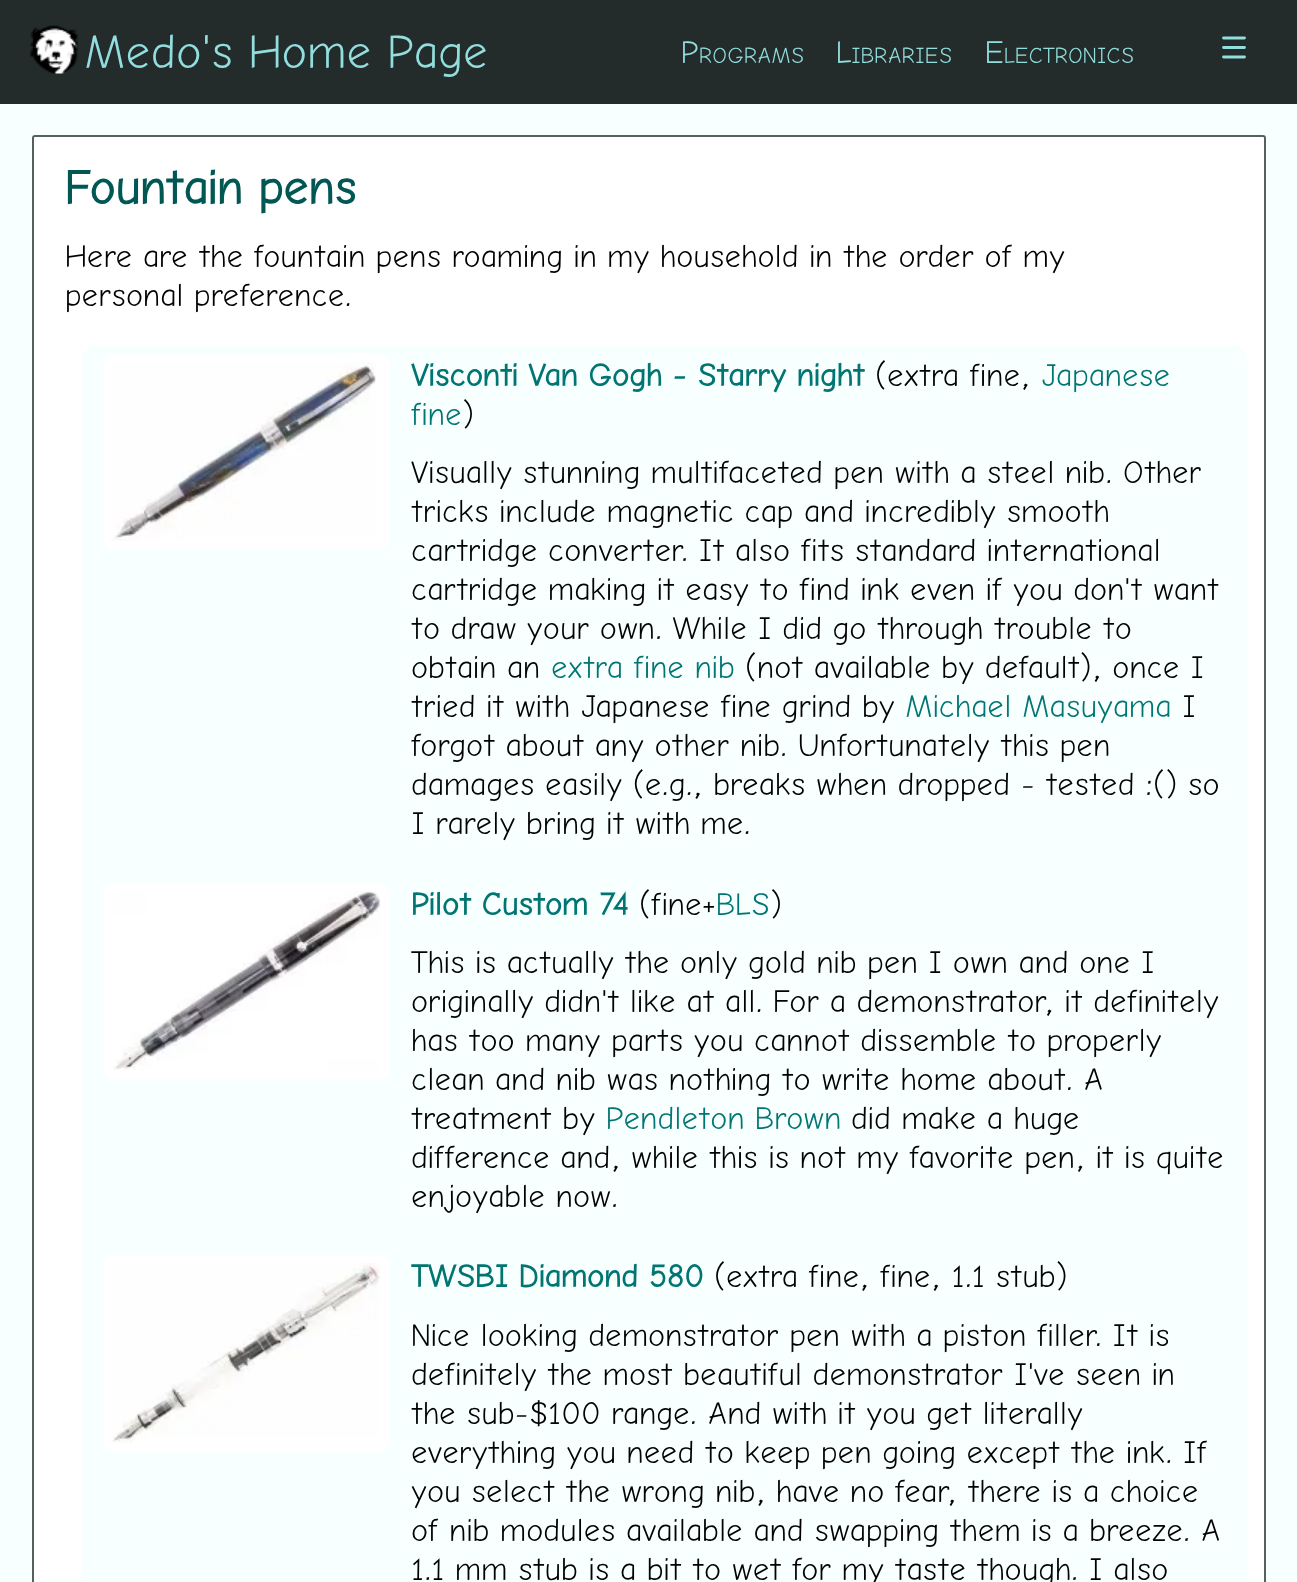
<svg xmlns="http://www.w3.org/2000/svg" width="1297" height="1582">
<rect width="100%" height="100%" fill="#f7ffff"/>
<rect width="1297" height="104" fill="#232b2b"/>
<image x="30" y="25" width="48" height="49" href="media/1.png"/>
<text x="84" y="68" style="font-family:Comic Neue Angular;font-size:48px;fill:#92dede">Medo's Home Page</text>
<text x="681" y="63" style="font-family:Comic Neue Angular;font-size:32px;fill:#92dede">P</text>
<text x="699" y="63" style="font-family:Comic Neue Angular;font-size:22.5px;fill:#92dede">ROGRAMS</text>
<text x="836" y="63" style="font-family:Comic Neue Angular;font-size:32px;fill:#92dede">L</text>
<text x="851" y="63" style="font-family:Comic Neue Angular;font-size:22.5px;fill:#92dede">IBRARIES</text>
<text x="985" y="63" style="font-family:Comic Neue Angular;font-size:32px;fill:#92dede">E</text>
<text x="1004" y="63" style="font-family:Comic Neue Angular;font-size:22.5px;fill:#92dede">LECTRONICS</text>
<path d="M1223.5 38h21m-21 9.5h21m-21 9.5h21" fill="none" stroke="#92dede" stroke-width="2.8" stroke-linecap="round" stroke-linejoin="round"/>
<rect x="33" y="136" width="1232" height="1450" rx="2" fill="#fff" stroke="#576060" stroke-width="2"/>
<text x="65" y="204" style="font-family:Comic Neue Angular;font-size:48px;font-weight:bold;fill:#005754">Fountain pens</text>
<text x="65" y="267" style="font-family:Comic Neue Angular;font-size:32px;fill:#000">Here are the fountain pens roaming in my household in the order of my</text>
<text x="65" y="306" style="font-family:Comic Neue Angular;font-size:32px;fill:#000">personal preference.</text>
<rect x="81" y="345" width="1167" height="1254" rx="17" fill="#f7ffff"/>
<rect x="104" y="354" width="285" height="195" rx="8" fill="#fff"/>
<image x="111" y="362" width="265" height="179" href="media/2.png"/>
<text x="411" y="386" style="font-family:Comic Neue Angular;font-size:32px;font-weight:bold;fill:#007572">Visconti Van Gogh - Starry night</text>
<text x="875" y="386" style="font-family:Comic Neue Angular;font-size:32px;fill:#000">(extra fine,</text>
<text x="1041" y="386" style="font-family:Comic Neue Angular;font-size:32px;fill:#007572">Japanese</text>
<text x="411" y="425" style="font-family:Comic Neue Angular;font-size:32px;fill:#007572">fine</text>
<text x="462" y="425" style="font-family:Comic Neue Angular;font-size:32px;fill:#000">)</text>
<text x="411" y="483" style="font-family:Comic Neue Angular;font-size:32px;fill:#000">Visually stunning multifaceted pen with a steel nib. Other</text>
<text x="411" y="522" style="font-family:Comic Neue Angular;font-size:32px;fill:#000">tricks include magnetic cap and incredibly smooth</text>
<text x="411" y="561" style="font-family:Comic Neue Angular;font-size:32px;fill:#000">cartridge converter. It also fits standard international</text>
<text x="411" y="600" style="font-family:Comic Neue Angular;font-size:32px;fill:#000">cartridge making it easy to find ink even if you don't want</text>
<text x="411" y="639" style="font-family:Comic Neue Angular;font-size:32px;fill:#000">to draw your own. While I did go through trouble to</text>
<text x="411" y="678" style="font-family:Comic Neue Angular;font-size:32px;fill:#000">obtain an</text>
<text x="551" y="678" style="font-family:Comic Neue Angular;font-size:32px;fill:#007572">extra fine nib</text>
<text x="745" y="678" style="font-family:Comic Neue Angular;font-size:32px;fill:#000">(not available by default), once I</text>
<text x="411" y="717" style="font-family:Comic Neue Angular;font-size:32px;fill:#000">tried it with Japanese fine grind by</text>
<text x="905" y="717" style="font-family:Comic Neue Angular;font-size:32px;fill:#007572">Michael Masuyama</text>
<text x="1182" y="717" style="font-family:Comic Neue Angular;font-size:32px;fill:#000">I</text>
<text x="411" y="756" style="font-family:Comic Neue Angular;font-size:32px;fill:#000">forgot about any other nib. Unfortunately this pen</text>
<text x="411" y="795" style="font-family:Comic Neue Angular;font-size:32px;fill:#000">damages easily (e.g., breaks when dropped - tested :() so</text>
<text x="411" y="834" style="font-family:Comic Neue Angular;font-size:32px;fill:#000">I rarely bring it with me.</text>
<rect x="104" y="884" width="285" height="195" rx="8" fill="#fff"/>
<image x="113" y="891" width="268" height="180" href="media/3.png"/>
<text x="411" y="915" style="font-family:Comic Neue Angular;font-size:32px;font-weight:bold;fill:#007572">Pilot Custom 74</text>
<text x="639" y="915" style="font-family:Comic Neue Angular;font-size:32px;fill:#000">(fine+</text>
<text x="716" y="915" style="font-family:Comic Neue Angular;font-size:32px;fill:#007572">BLS</text>
<text x="770" y="915" style="font-family:Comic Neue Angular;font-size:32px;fill:#000">)</text>
<text x="411" y="973" style="font-family:Comic Neue Angular;font-size:32px;fill:#000">This is actually the only gold nib pen I own and one I</text>
<text x="411" y="1012" style="font-family:Comic Neue Angular;font-size:32px;fill:#000">originally didn't like at all. For a demonstrator, it definitely</text>
<text x="411" y="1051" style="font-family:Comic Neue Angular;font-size:32px;fill:#000">has too many parts you cannot dissemble to properly</text>
<text x="411" y="1090" style="font-family:Comic Neue Angular;font-size:32px;fill:#000">clean and nib was nothing to write home about. A</text>
<text x="411" y="1129" style="font-family:Comic Neue Angular;font-size:32px;fill:#000">treatment by</text>
<text x="606" y="1129" style="font-family:Comic Neue Angular;font-size:32px;fill:#007572">Pendleton Brown</text>
<text x="851" y="1129" style="font-family:Comic Neue Angular;font-size:32px;fill:#000">did make a huge</text>
<text x="411" y="1168" style="font-family:Comic Neue Angular;font-size:32px;fill:#000">difference and, while this is not my favorite pen, it is quite</text>
<text x="411" y="1207" style="font-family:Comic Neue Angular;font-size:32px;fill:#000">enjoyable now.</text>
<rect x="104" y="1256" width="285" height="195" rx="8" fill="#fff"/>
<image x="112" y="1263" width="268" height="180" href="media/4.png"/>
<text x="411" y="1287" style="font-family:Comic Neue Angular;font-size:32px;font-weight:bold;fill:#007572">TWSBI Diamond 580</text>
<text x="714" y="1287" style="font-family:Comic Neue Angular;font-size:32px;fill:#000">(extra fine, fine, 1.1 stub)</text>
<text x="411" y="1346" style="font-family:Comic Neue Angular;font-size:32px;fill:#000">Nice looking demonstrator pen with a piston filler. It is</text>
<text x="411" y="1385" style="font-family:Comic Neue Angular;font-size:32px;fill:#000">definitely the most beautiful demonstrator I've seen in</text>
<text x="411" y="1424" style="font-family:Comic Neue Angular;font-size:32px;fill:#000">the sub-$100 range. And with it you get literally</text>
<text x="411" y="1463" style="font-family:Comic Neue Angular;font-size:32px;fill:#000">everything you need to keep pen going except the ink. If</text>
<text x="411" y="1502" style="font-family:Comic Neue Angular;font-size:32px;fill:#000">you select the wrong nib, have no fear, there is a choice</text>
<text x="411" y="1541" style="font-family:Comic Neue Angular;font-size:32px;fill:#000">of nib modules available and swapping them is a breeze. A</text>
<text x="411" y="1580" style="font-family:Comic Neue Angular;font-size:32px;fill:#000">1.1 mm stub is a bit to wet for my taste though. I also</text>
</svg>
